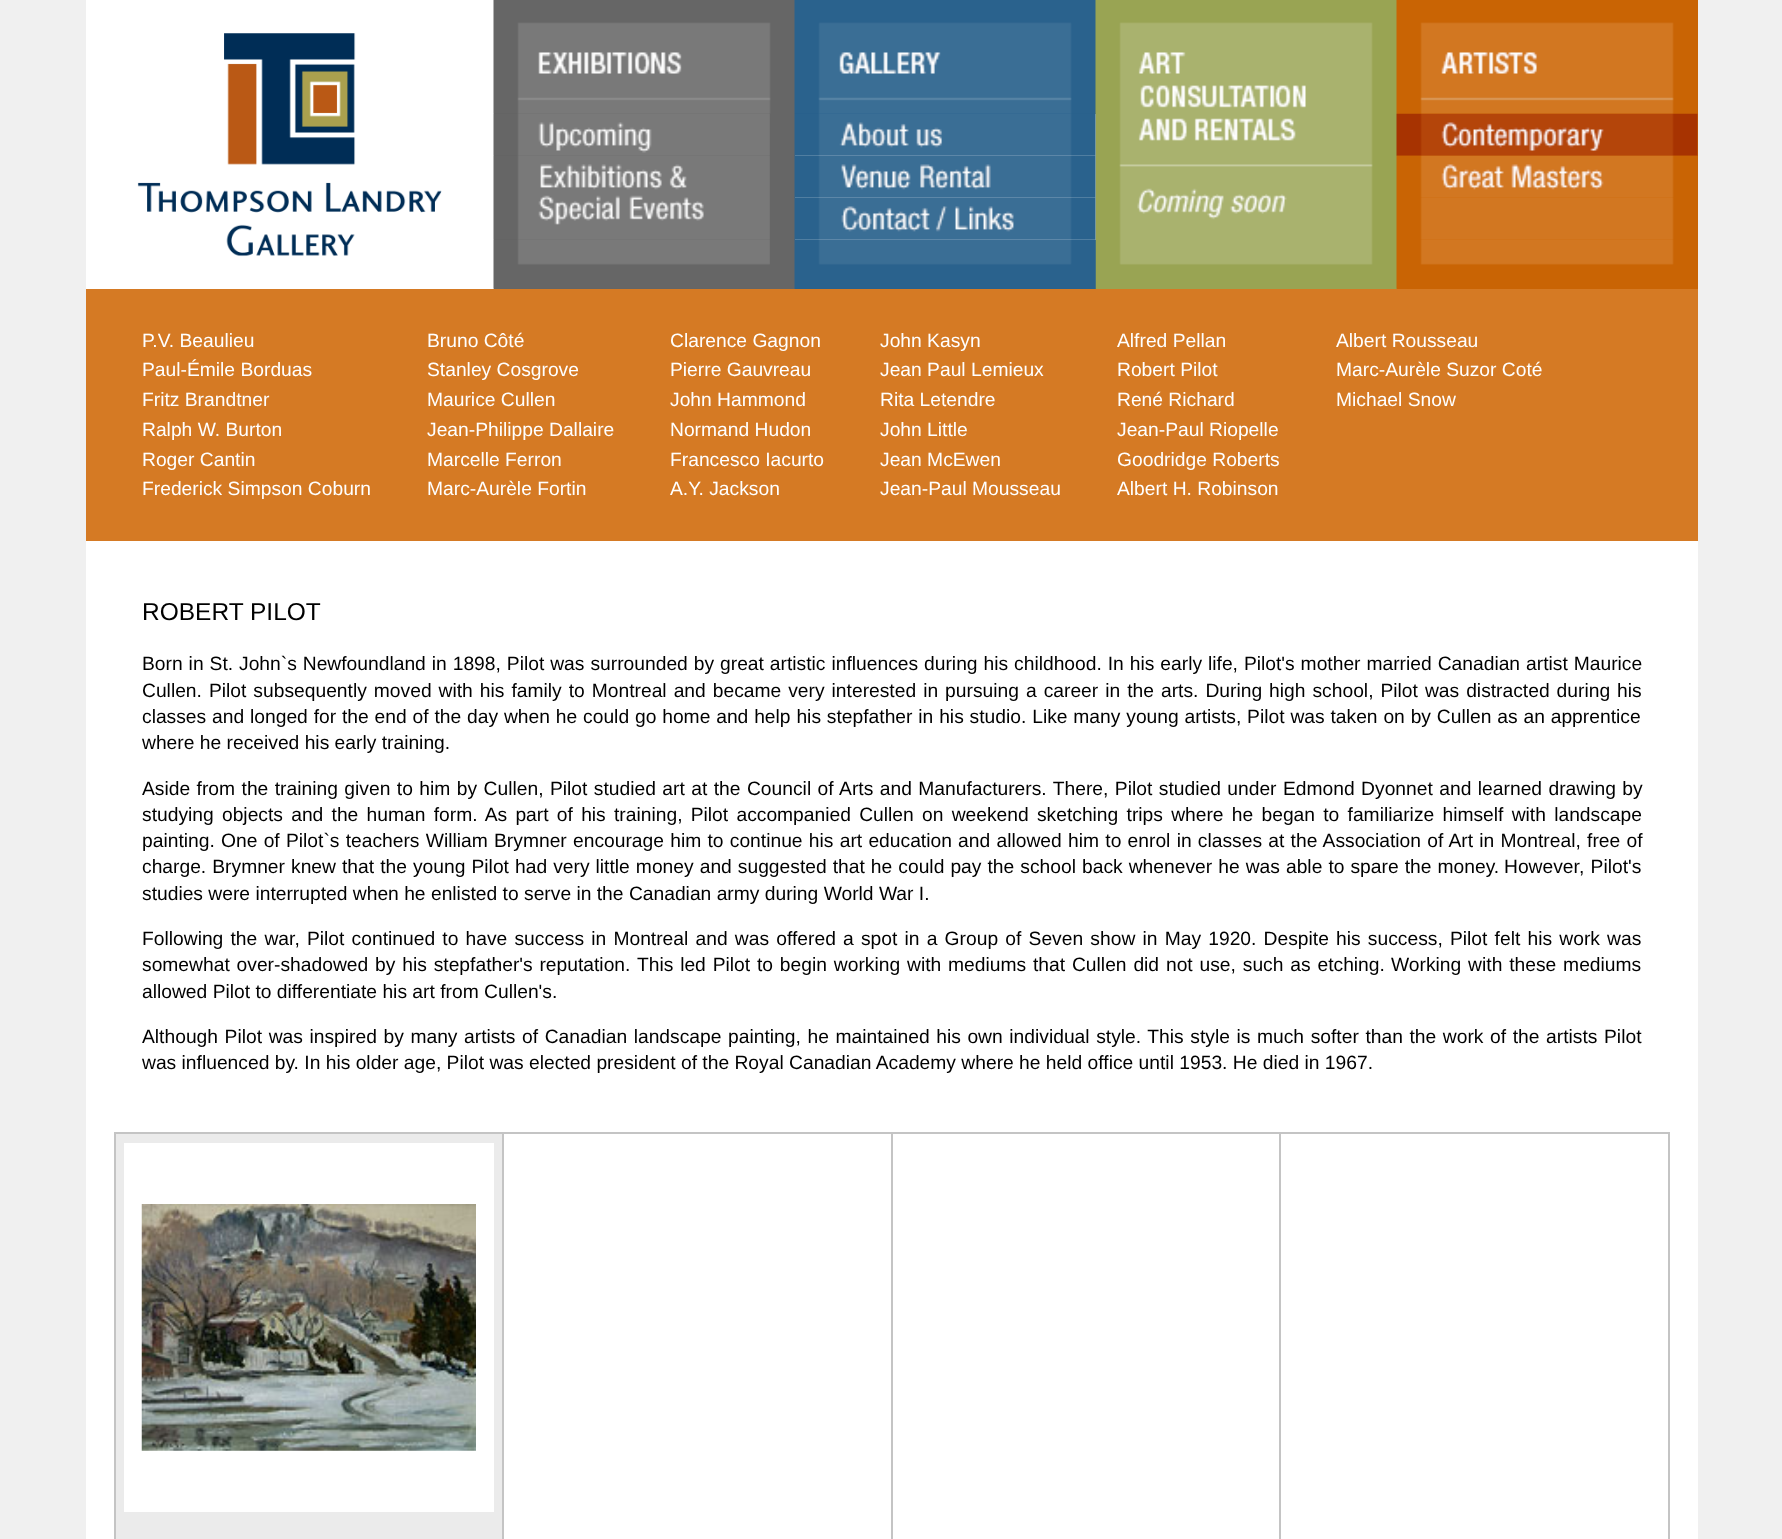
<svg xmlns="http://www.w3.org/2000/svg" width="1782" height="1539">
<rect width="100%" height="100%" fill="#f0f0f0"/>
<rect x="86" width="1612" height="1539" fill="#fff"/>
<image x="137" y="33" width="305" height="224" href="media/1.png"/>
<rect x="494" width="301" height="289" fill="#666"/>
<image x="493" y="0" width="278" height="114" href="media/2.png"/>
<rect x="795" width="301" height="114" fill="#2a628d"/>
<image x="794" y="0" width="278" height="114" href="media/3.png"/>
<rect x="1096" width="301" height="289" fill="#99a453"/>
<rect x="795" y="240" width="301" height="49" fill="#2a628d"/>
<image x="1095" y="0" width="278" height="289" href="media/4.png"/>
<rect x="1397" width="301" height="289" fill="#c96404"/>
<image x="1396" y="0" width="278" height="114" href="media/5.png"/>
<image x="493" y="113" width="277" height="43" href="media/6.png"/>
<image x="794" y="113" width="302" height="43" href="media/7.png"/>
<image x="1396" y="113" width="302" height="43" href="media/8.png"/>
<image x="493" y="155" width="277" height="85" href="media/9.png"/>
<image x="794" y="155" width="302" height="43" href="media/10.png"/>
<image x="1396" y="155" width="301" height="43" href="media/11.png"/>
<image x="794" y="197" width="302" height="43" href="media/12.png"/>
<image x="1396" y="197" width="278" height="43" href="media/13.png"/>
<image x="493" y="239" width="277" height="50" href="media/14.png"/>
<image x="794" y="239" width="302" height="50" href="media/15.png"/>
<image x="1396" y="239" width="278" height="50" href="media/16.png"/>
<rect x="86" y="289" width="1612" height="252" fill="#d57a24"/>
<text x="142" y="347" style="font-family:Liberation Sans;font-size:19.25px;fill:#fff">P.V. Beaulieu</text>
<text x="142" y="376" style="font-family:Liberation Sans;font-size:19.25px;fill:#fff">Paul-Émile Borduas</text>
<text x="142" y="406" style="font-family:Liberation Sans;font-size:19.25px;fill:#fff">Fritz Brandtner</text>
<text x="142" y="436" style="font-family:Liberation Sans;font-size:19.25px;fill:#fff">Ralph W. Burton</text>
<text x="142" y="466" style="font-family:Liberation Sans;font-size:19.25px;fill:#fff">Roger Cantin</text>
<text x="142" y="495" style="font-family:Liberation Sans;font-size:19.25px;fill:#fff">Frederick Simpson Coburn</text>
<text x="427" y="347" style="font-family:Liberation Sans;font-size:19.25px;fill:#fff">Bruno Côté</text>
<text x="427" y="376" style="font-family:Liberation Sans;font-size:19.25px;fill:#fff">Stanley Cosgrove</text>
<text x="427" y="406" style="font-family:Liberation Sans;font-size:19.25px;fill:#fff">Maurice Cullen</text>
<text x="427" y="436" style="font-family:Liberation Sans;font-size:19.25px;fill:#fff">Jean-Philippe Dallaire</text>
<text x="427" y="466" style="font-family:Liberation Sans;font-size:19.25px;fill:#fff">Marcelle Ferron</text>
<text x="427" y="495" style="font-family:Liberation Sans;font-size:19.25px;fill:#fff">Marc-Aurèle Fortin</text>
<text x="670" y="347" style="font-family:Liberation Sans;font-size:19.25px;fill:#fff">Clarence Gagnon</text>
<text x="670" y="376" style="font-family:Liberation Sans;font-size:19.25px;fill:#fff">Pierre Gauvreau</text>
<text x="670" y="406" style="font-family:Liberation Sans;font-size:19.25px;fill:#fff">John Hammond</text>
<text x="670" y="436" style="font-family:Liberation Sans;font-size:19.25px;fill:#fff">Normand Hudon</text>
<text x="670" y="466" style="font-family:Liberation Sans;font-size:19.25px;fill:#fff">Francesco Iacurto</text>
<text x="670" y="495" style="font-family:Liberation Sans;font-size:19.25px;fill:#fff">A.Y. Jackson</text>
<text x="880" y="347" style="font-family:Liberation Sans;font-size:19.25px;fill:#fff">John Kasyn</text>
<text x="880" y="376" style="font-family:Liberation Sans;font-size:19.25px;fill:#fff">Jean Paul Lemieux</text>
<text x="880" y="406" style="font-family:Liberation Sans;font-size:19.25px;fill:#fff">Rita Letendre</text>
<text x="880" y="436" style="font-family:Liberation Sans;font-size:19.25px;fill:#fff">John Little</text>
<text x="880" y="466" style="font-family:Liberation Sans;font-size:19.25px;fill:#fff">Jean McEwen</text>
<text x="880" y="495" style="font-family:Liberation Sans;font-size:19.25px;fill:#fff">Jean-Paul Mousseau</text>
<text x="1117" y="347" style="font-family:Liberation Sans;font-size:19.25px;fill:#fff">Alfred Pellan</text>
<text x="1117" y="376" style="font-family:Liberation Sans;font-size:19.25px;fill:#fff">Robert Pilot</text>
<text x="1117" y="406" style="font-family:Liberation Sans;font-size:19.25px;fill:#fff">René Richard</text>
<text x="1117" y="436" style="font-family:Liberation Sans;font-size:19.25px;fill:#fff">Jean-Paul Riopelle</text>
<text x="1117" y="466" style="font-family:Liberation Sans;font-size:19.25px;fill:#fff">Goodridge Roberts</text>
<text x="1117" y="495" style="font-family:Liberation Sans;font-size:19.25px;fill:#fff">Albert H. Robinson</text>
<text x="1336" y="347" style="font-family:Liberation Sans;font-size:19.25px;fill:#fff">Albert Rousseau</text>
<text x="1336" y="376" style="font-family:Liberation Sans;font-size:19.25px;fill:#fff">Marc-Aurèle Suzor Coté</text>
<text x="1336" y="406" style="font-family:Liberation Sans;font-size:19.25px;fill:#fff">Michael Snow</text>
<text x="142" y="620" style="font-family:Liberation Sans;font-size:24.5px;fill:#000">ROBERT PILOT</text>
<text x="142" y="670" word-spacing="0.6" style="font-family:Liberation Sans;font-size:19.25px;fill:#000">Born in St. John`s Newfoundland in 1898, Pilot was surrounded by great artistic influences during his childhood. In his early life, Pilot's mother married Canadian artist Maurice</text>
<text x="142" y="697" word-spacing="1.65" style="font-family:Liberation Sans;font-size:19.25px;fill:#000">Cullen. Pilot subsequently moved with his family to Montreal and became very interested in pursuing a career in the arts. During high school, Pilot was distracted during his</text>
<text x="142" y="723" word-spacing="0.5" style="font-family:Liberation Sans;font-size:19.25px;fill:#000">classes and longed for the end of the day when he could go home and help his stepfather in his studio. Like many young artists, Pilot was taken on by Cullen as an apprentice</text>
<text x="142" y="749" style="font-family:Liberation Sans;font-size:19.25px;fill:#000">where he received his early training.</text>
<text x="142" y="795" word-spacing="1.1" style="font-family:Liberation Sans;font-size:19.25px;fill:#000">Aside from the training given to him by Cullen, Pilot studied art at the Council of Arts and Manufacturers. There, Pilot studied under Edmond Dyonnet and learned drawing by</text>
<text x="142" y="821" word-spacing="2.9" style="font-family:Liberation Sans;font-size:19.25px;fill:#000">studying objects and the human form. As part of his training, Pilot accompanied Cullen on weekend sketching trips where he began to familiarize himself with landscape</text>
<text x="142" y="847" style="font-family:Liberation Sans;font-size:19.25px;fill:#000">painting.</text>
<text x="221" y="847" word-spacing="0.9" style="font-family:Liberation Sans;font-size:19.25px;fill:#000">One of Pilot`s teachers William Brymner encourage him to continue his art education and allowed him to enrol in classes at the Association of Art in Montreal, free of</text>
<text x="142" y="873" word-spacing="0.7" style="font-family:Liberation Sans;font-size:19.25px;fill:#000">charge. Brymner knew that the young Pilot had very little money and suggested that he could pay the school back whenever he was able to spare the money.</text>
<text x="1504" y="873" word-spacing="1" style="font-family:Liberation Sans;font-size:19.25px;fill:#000">However, Pilot's</text>
<text x="142" y="900" style="font-family:Liberation Sans;font-size:19.25px;fill:#000">studies were interrupted when he enlisted to serve in the Canadian army during World War I.</text>
<text x="142" y="945" word-spacing="1.85" style="font-family:Liberation Sans;font-size:19.25px;fill:#000">Following the war, Pilot continued to have success in Montreal and was offered a spot in a Group of Seven show in May 1920. Despite his success, Pilot felt his work was</text>
<text x="142" y="971" word-spacing="1.5" style="font-family:Liberation Sans;font-size:19.25px;fill:#000">somewhat over-shadowed by his stepfather's reputation. This led Pilot to begin working with mediums that Cullen did not use, such as etching.</text>
<text x="1391" y="971" word-spacing="1.5" style="font-family:Liberation Sans;font-size:19.25px;fill:#000">Working with these mediums</text>
<text x="142" y="998" style="font-family:Liberation Sans;font-size:19.25px;fill:#000">allowed Pilot to differentiate his art from Cullen's.</text>
<text x="142" y="1043" word-spacing="1.25" style="font-family:Liberation Sans;font-size:19.25px;fill:#000">Although Pilot was inspired by many artists of Canadian landscape painting, he maintained his own individual style. This style is much softer than the work of the artists Pilot</text>
<text x="142" y="1069" style="font-family:Liberation Sans;font-size:19.25px;fill:#000">was influenced by. In his older age, Pilot was elected president of the Royal Canadian Academy where he held office until 1953. He died in 1967.</text>
<rect x="114" y="1132" width="1556" height="407" fill="#c4c4c4"/>
<rect x="116" y="1134" width="386" height="405" fill="#ebebeb"/>
<rect x="124" y="1143" width="370" height="369" fill="#fff"/>
<image x="141" y="1204" width="335" height="247" href="media/17.png"/>
<rect x="504" y="1134" width="387" height="405" fill="#fff"/>
<rect x="893" y="1134" width="386" height="405" fill="#fff"/>
<rect x="1281" y="1134" width="387" height="405" fill="#fff"/>
</svg>
